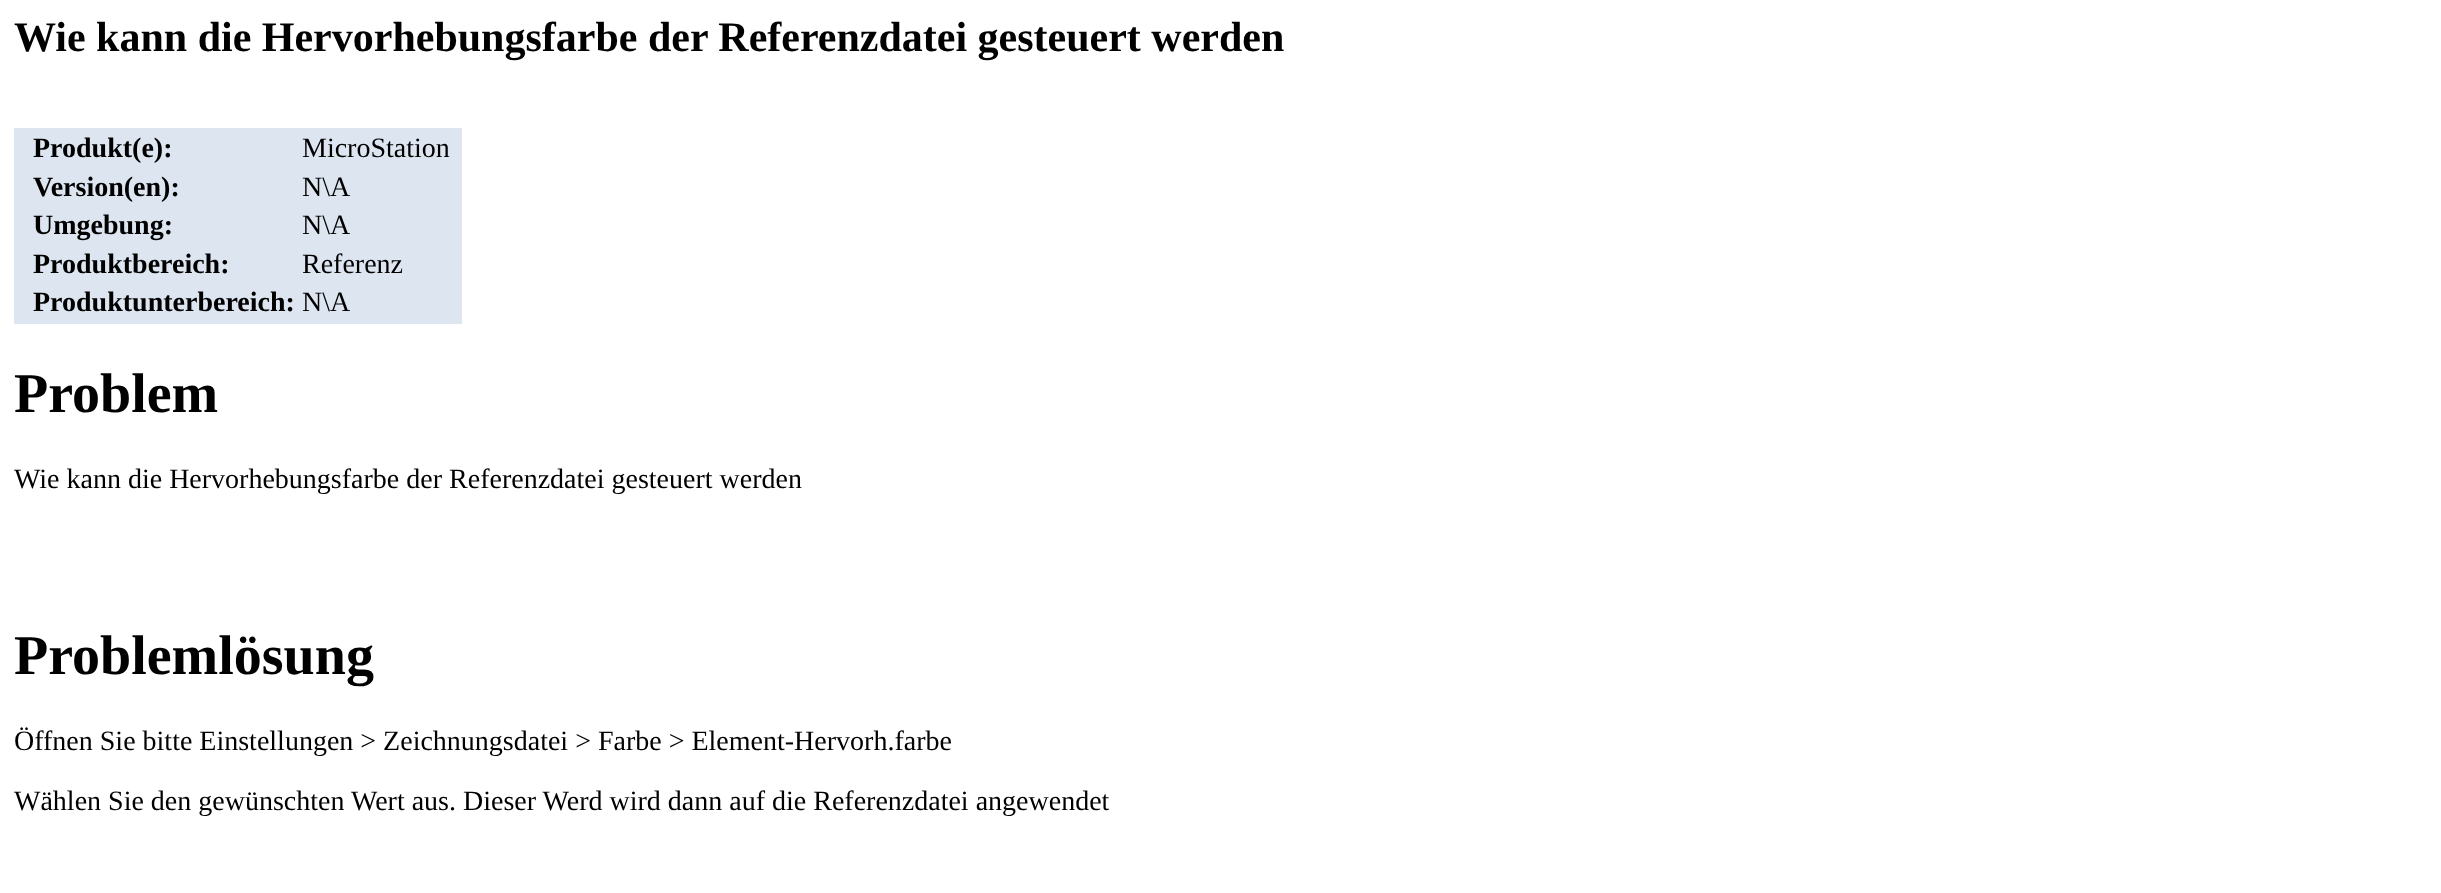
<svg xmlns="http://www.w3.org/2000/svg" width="2441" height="893">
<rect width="100%" height="100%" fill="#fff"/>
<text x="14" y="51" style="font-family:Liberation Serif;font-size:42px;font-weight:bold;fill:#000">Wie kann die Hervorhebungsfarbe der Referenzdatei gesteuert werden</text>
<rect x="14" y="128" width="448" height="196" fill="#dce5f0"/>
<text x="33" y="157" style="font-family:Liberation Serif;font-size:28px;font-weight:bold;fill:#000">Produkt(e):</text>
<text x="302" y="157" style="font-family:Liberation Serif;font-size:28px;fill:#000">MicroStation</text>
<text x="33" y="196" style="font-family:Liberation Serif;font-size:28px;font-weight:bold;fill:#000">Version(en):</text>
<text x="302" y="196" style="font-family:Liberation Serif;font-size:28px;fill:#000">N\A</text>
<text x="33" y="234" style="font-family:Liberation Serif;font-size:28px;font-weight:bold;fill:#000">Umgebung:</text>
<text x="302" y="234" style="font-family:Liberation Serif;font-size:28px;fill:#000">N\A</text>
<text x="33" y="273" style="font-family:Liberation Serif;font-size:28px;font-weight:bold;fill:#000">Produktbereich:</text>
<text x="302" y="273" style="font-family:Liberation Serif;font-size:28px;fill:#000">Referenz</text>
<text x="33" y="311" style="font-family:Liberation Serif;font-size:28px;font-weight:bold;fill:#000">Produktunterbereich:</text>
<text x="302" y="311" style="font-family:Liberation Serif;font-size:28px;fill:#000">N\A</text>
<text x="14" y="412" style="font-family:Liberation Serif;font-size:56px;font-weight:bold;fill:#000">Problem</text>
<text x="14" y="488" style="font-family:Liberation Serif;font-size:28px;fill:#000">Wie kann die Hervorhebungsfarbe der Referenzdatei gesteuert werden</text>
<text x="14" y="674" style="font-family:Liberation Serif;font-size:56px;font-weight:bold;fill:#000">Problemlösung</text>
<text x="14" y="750" style="font-family:Liberation Serif;font-size:28px;fill:#000">Öffnen Sie bitte Einstellungen &gt; Zeichnungsdatei &gt; Farbe &gt; Element-Hervorh.farbe</text>
<text x="14" y="810" style="font-family:Liberation Serif;font-size:28px;fill:#000">Wählen Sie den gewünschten Wert aus. Dieser Werd wird dann auf die Referenzdatei angewendet</text>
</svg>
